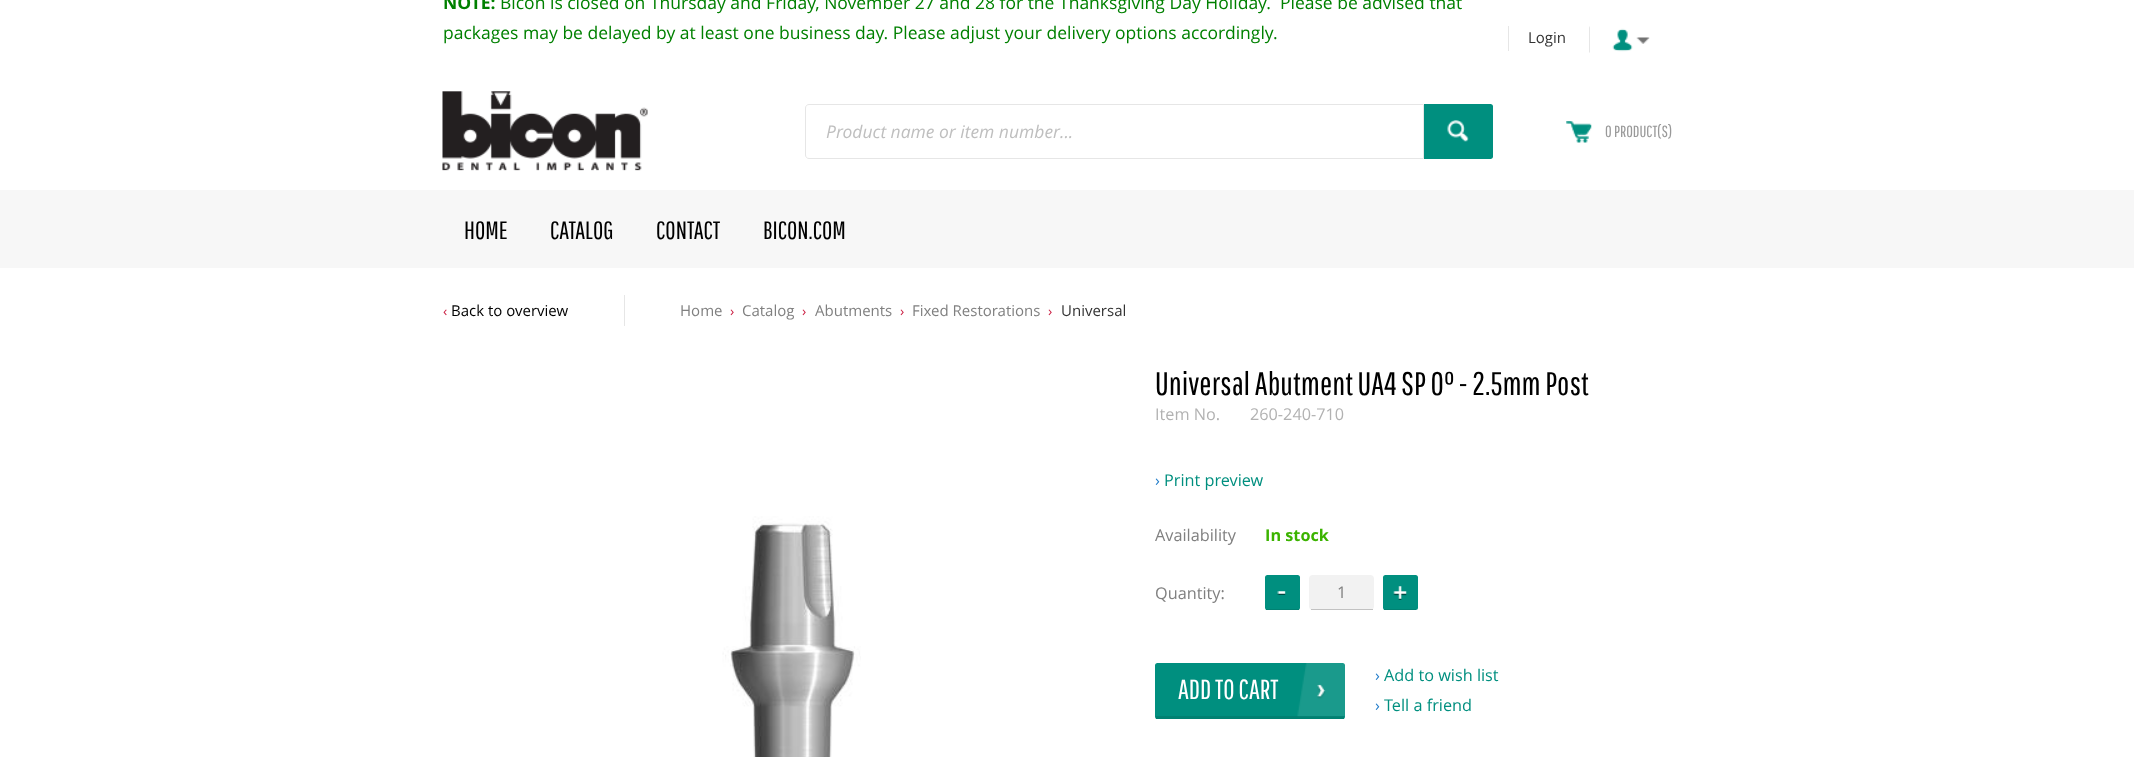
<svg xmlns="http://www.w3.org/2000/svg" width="2134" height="757">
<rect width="100%" height="100%" fill="#fff"/>
<text x="443" y="9" style="font-family:Open Sans;font-size:17.5px;font-weight:bold;fill:#008000">NOTE:</text>
<text x="500" y="9" style="font-family:Open Sans;font-size:17.5px;fill:#008000" xml:space="preserve">Bicon is closed on Thursday and Friday, November 27 and 28 for the Thanksgiving Day Holiday.  Please be advised that</text>
<text x="443" y="39" style="font-family:Open Sans;font-size:17.5px;fill:#008000">packages may be delayed by at least one business day. Please adjust your delivery options accordingly.</text>
<rect x="1508" y="26" width="1" height="25" fill="#e6e6e6"/>
<text x="1528" y="43" style="font-family:Open Sans;font-size:15px;fill:#333">Login</text>
<path d="M1589 52.5v-26.5l1 1.5v25z" fill="#e6e6e6"/>
<image x="1612" y="28" width="21" height="24" href="media/1.png"/>
<image x="1636" y="37" width="14" height="7" href="media/2.png"/>
<image x="442" y="91" width="206" height="80" href="media/3.png"/>
<path d="M809 104.5h614.5v54h-614.5c-2 0-3.5-1.5-3.5-3.5v-47c0-2 1.5-3.5 3.5-3.5z" fill="none" stroke="#e6e6e6"/>
<text x="826" y="138" style="font-family:Open Sans;font-size:17.5px;font-style:italic;fill:#bfbfbf">Product name or item number...</text>
<path d="M1424 104h66.5c1.5 0 2.5 1 2.5 2.5v50c0 1.5-1 2.5-2.5 2.5h-66.5z" fill="#008f7f"/>
<image x="1447" y="120" width="22" height="22" href="media/4.png"/>
<image x="1566" y="121" width="26" height="22" href="media/5.png"/>
<text x="1605" y="137" style="font-family:Pathway Gothic One;font-size:16.25px;fill:#999">0 PRODUCT(S)</text>
<rect y="190" width="2134" height="78" fill="#f7f7f7"/>
<text x="464" y="239" style="font-family:Pathway Gothic One;font-size:25px;fill:#000">HOME</text>
<text x="550" y="239" style="font-family:Pathway Gothic One;font-size:25px;fill:#000">CATALOG</text>
<text x="656" y="239" style="font-family:Pathway Gothic One;font-size:25px;fill:#000">CONTACT</text>
<text x="763" y="239" style="font-family:Pathway Gothic One;font-size:25px;fill:#000">BICON.COM</text>
<text x="443" y="316" style="font-family:Open Sans;font-size:14px;fill:#cb2245">‹</text>
<text x="451" y="316" style="font-family:Open Sans;font-size:15px;fill:#000">Back to overview</text>
<rect x="624" y="295" width="1" height="31" fill="#e6e6e6"/>
<text x="680" y="316" style="font-family:Open Sans;font-size:15px;fill:#808080">Home</text>
<text x="730" y="316" style="font-family:Open Sans;font-size:14px;fill:#cb2245">›</text>
<text x="742" y="316" style="font-family:Open Sans;font-size:15px;fill:#808080">Catalog</text>
<text x="802" y="316" style="font-family:Open Sans;font-size:14px;fill:#cb2245">›</text>
<text x="815" y="316" style="font-family:Open Sans;font-size:15px;fill:#808080">Abutments</text>
<text x="900" y="316" style="font-family:Open Sans;font-size:14px;fill:#cb2245">›</text>
<text x="912" y="316" style="font-family:Open Sans;font-size:15px;fill:#808080">Fixed Restorations</text>
<text x="1048" y="316" style="font-family:Open Sans;font-size:14px;fill:#cb2245">›</text>
<text x="1061" y="316" style="font-family:Open Sans;font-size:15px;fill:#333">Universal</text>
<image x="722" y="516" width="139" height="241" href="media/6.png"/>
<text x="1155" y="395" style="font-family:Pathway Gothic One;font-size:32.5px;fill:#000">Universal Abutment UA4 SP 0° - 2.5mm Post</text>
<text x="1155" y="420" style="font-family:Open Sans;font-size:16.25px;fill:#b2b2b2">Item No.</text>
<text x="1250" y="420" style="font-family:Open Sans;font-size:16.25px;fill:#b2b2b2">260-240-710</text>
<text x="1155" y="486" style="font-family:Open Sans;font-size:16.25px;fill:#1f7bc9">›</text>
<text x="1164" y="486" style="font-family:Open Sans;font-size:16.25px;fill:#008f7f">Print preview</text>
<text x="1155" y="541" style="font-family:Open Sans;font-size:16.25px;fill:#808080">Availability</text>
<text x="1265" y="541" style="font-family:Open Sans;font-size:16.25px;font-weight:bold;fill:#3cb300">In stock</text>
<text x="1155" y="599" style="font-family:Open Sans;font-size:16.25px;fill:#808080">Quantity:</text>
<rect x="1309" y="575" width="65" height="35" rx="4" fill="#f2f2f2"/>
<rect x="1311" y="609" width="62" height="1" fill="#c2c2c2"/>
<rect x="1265" y="575" width="35" height="35" rx="2.5" fill="#008f7f"/>
<rect x="1266" y="609" width="33" height="1" fill="#018172"/>
<image x="1277" y="591" width="9" height="4" href="media/7.png"/>
<text x="1337" y="598" style="font-family:Open Sans;font-size:16.25px;fill:#808080">1</text>
<rect x="1383" y="575" width="35" height="35" rx="2.5" fill="#008f7f"/>
<rect x="1384" y="609" width="32" height="1" fill="#018172"/>
<image x="1393" y="586" width="14" height="14" href="media/8.png"/>
<rect x="1155" y="663" width="190" height="56" rx="2.5" fill="#008f7f"/>
<rect x="1156" y="716" width="188" height="3" fill="#018172"/>
<text x="1178" y="699" style="font-family:Pathway Gothic One;font-size:27.5px;fill:#fff">ADD TO CART</text>
<image x="1317" y="684" width="9" height="15" href="media/9.png"/>
<image x="1297" y="663" width="48" height="54" href="media/10.png"/>
<text x="1375" y="681" style="font-family:Open Sans;font-size:16.25px;fill:#1f7bc9">›</text>
<text x="1384" y="681" style="font-family:Open Sans;font-size:16.25px;fill:#008f7f">Add to wish list</text>
<text x="1375" y="711" style="font-family:Open Sans;font-size:16.25px;fill:#1f7bc9">›</text>
<text x="1384" y="711" style="font-family:Open Sans;font-size:16.25px;fill:#008f7f">Tell a friend</text>
</svg>
